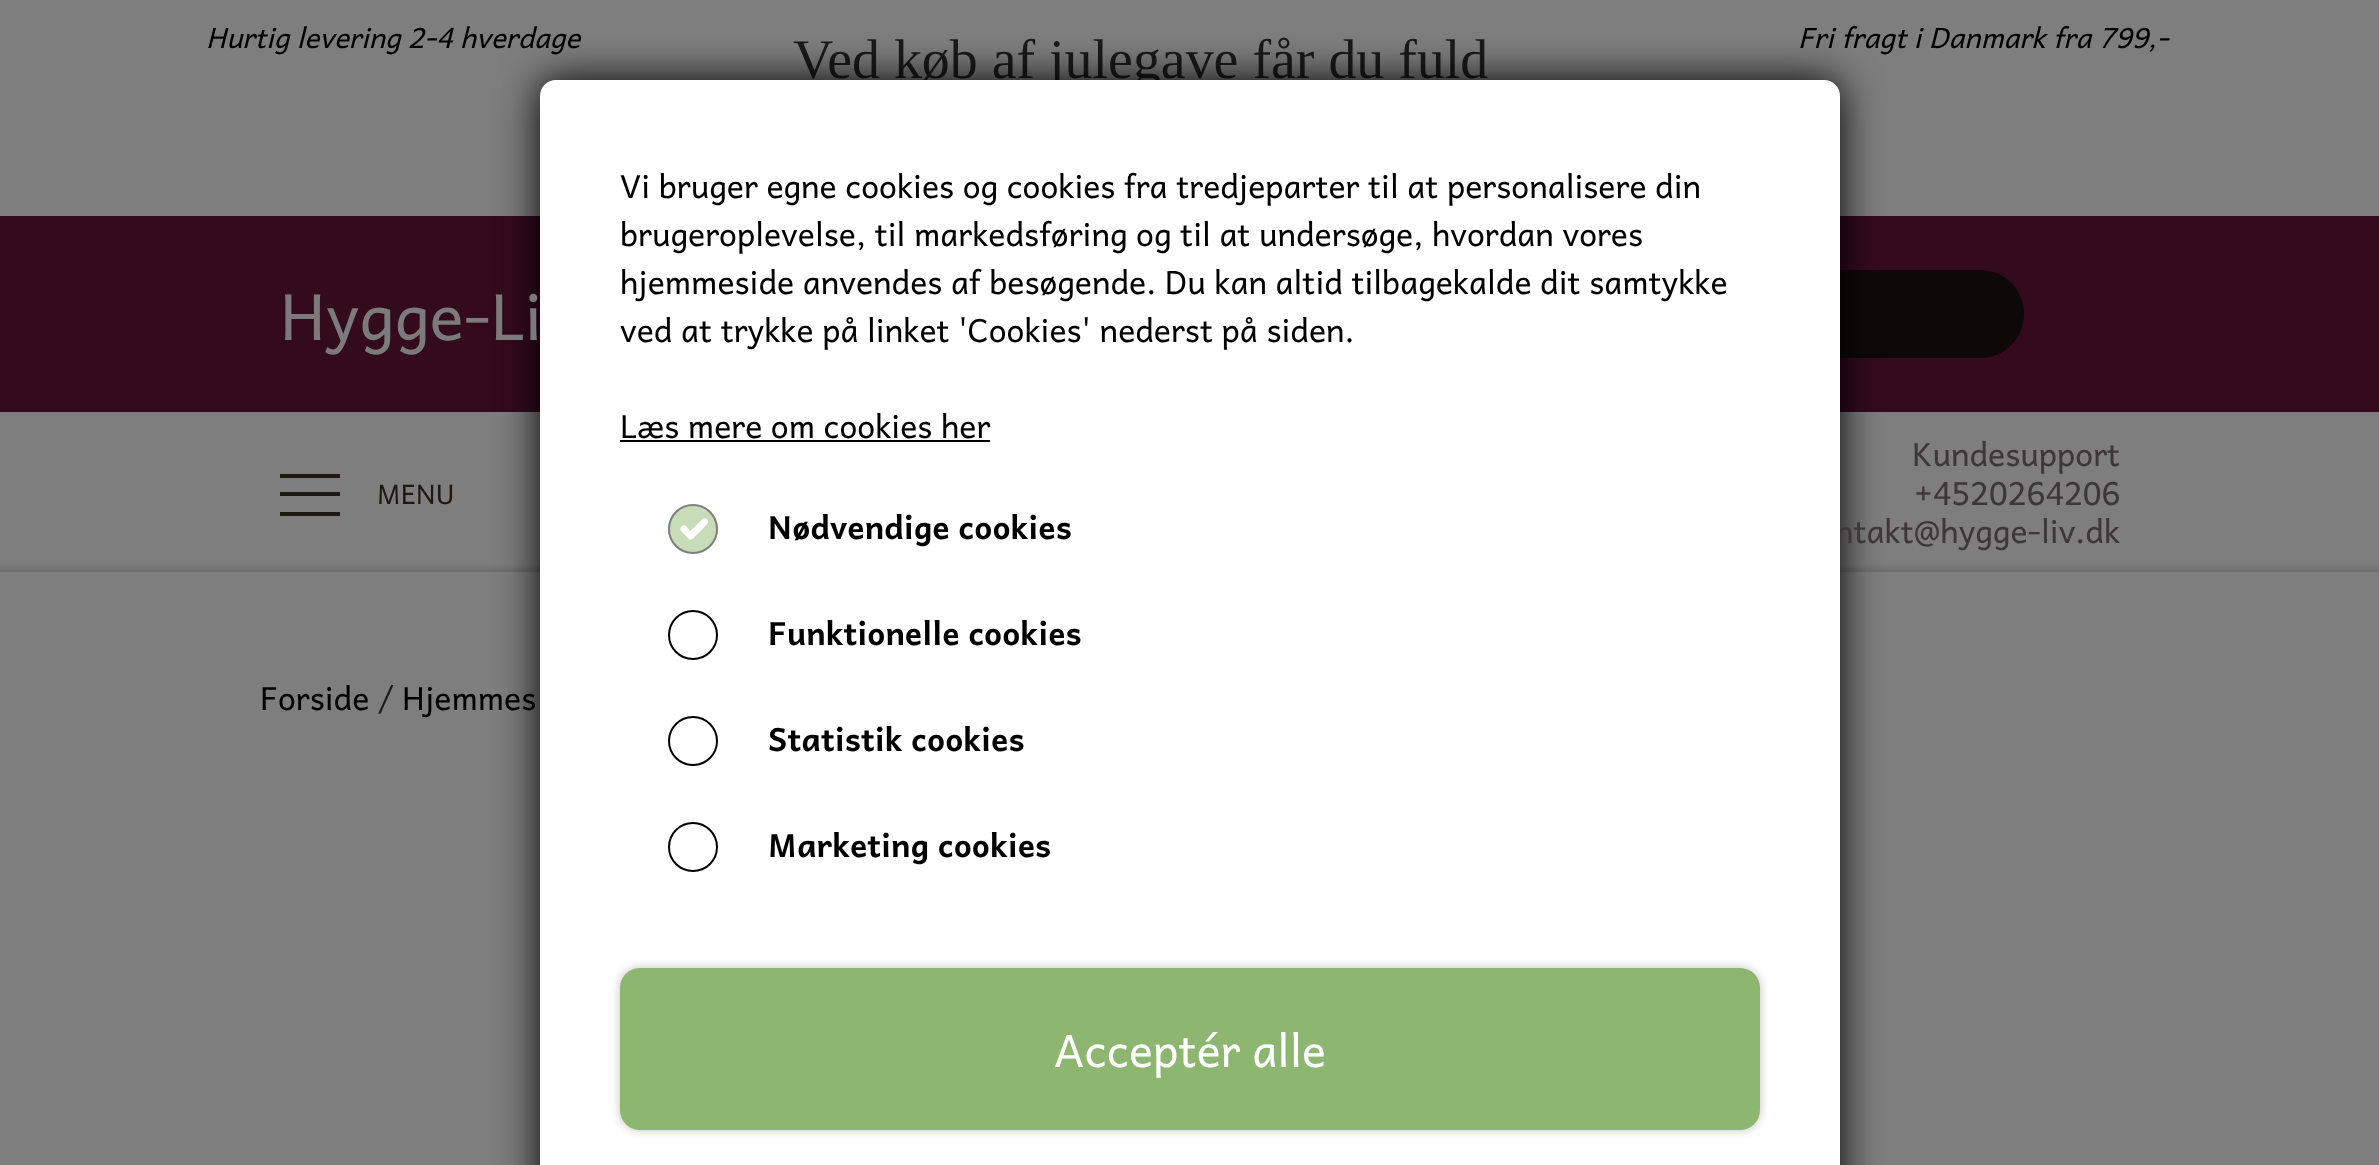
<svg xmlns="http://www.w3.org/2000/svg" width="2379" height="1165">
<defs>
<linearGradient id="g1" gradientUnits="userSpaceOnUse" x1="1190" y1="572" x2="1190" y2="562"><stop offset="0" stop-color="#6d6d6d"/><stop offset="1" stop-color="#808080"/></linearGradient>
</defs>
<rect width="100%" height="100%" fill="#7e7e7e"/>
<text x="206" y="48" style="font-family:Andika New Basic;font-size:28px;font-style:italic;fill:#000">Hurtig levering 2-4 hverdage</text>
<text x="793" y="78" style="font-family:Liberation Serif;font-size:55.9px;fill:#1a1a1a">Ved køb af julegave får du fuld</text>
<text x="1798" y="48" style="font-family:Andika New Basic;font-size:28px;font-style:italic;fill:#000">Fri fragt i Danmark fra 799,-</text>
<rect y="216" width="2379" height="196" fill="#340a1d"/>
<rect x="1840" y="270" width="136" height="88" fill="#0f0808"/>
<rect y="564" width="2379" height="8" fill="url(#g1)"/>
<rect x="540" y="80" width="1300" height="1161" rx="16" fill="#000" filter="blur(20px)"/>
<text x="1835" y="543" style="font-family:Andika New Basic;font-size:32px;fill:#3c3739">ntakt@hygge-liv.dk</text>
<path d="M556 80h1268c9 0 16 7 16 16v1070h-1300v-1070c0-9 7-16 16-16z" fill="#fff"/>
<text x="620" y="198" style="font-family:Andika New Basic;font-size:32px;fill:#000">Vi bruger egne cookies og cookies fra tredjeparter til at personalisere din</text>
<text x="620" y="246" style="font-family:Andika New Basic;font-size:32px;fill:#000">brugeroplevelse, til markedsføring og til at undersøge, hvordan vores</text>
<text x="620" y="294" style="font-family:Andika New Basic;font-size:32px;fill:#000">hjemmeside anvendes af besøgende. Du kan altid tilbagekalde dit samtykke</text>
<text x="620" y="342" style="font-family:Andika New Basic;font-size:32px;fill:#000">ved at trykke på linket 'Cookies' nederst på siden.</text>
<text x="620" y="438" style="font-family:Andika New Basic;font-size:32px;fill:#000">Læs mere om cookies her</text>
<rect x="620" y="440" width="370" height="2" fill="#000"/>
<circle cx="693" cy="529" r="25" fill="#c8dcba"/>
<path d="M684 529l6.5 7l14-14" fill="none" stroke="#fff" stroke-width="6.9" stroke-linecap="round" stroke-linejoin="round"/>
<circle cx="693" cy="529" r="24" fill="none" stroke="#808080" stroke-width="2"/>
<text x="768" y="539" style="font-family:Andika New Basic;font-size:32px;font-weight:bold;fill:#000">Nødvendige cookies</text>
<circle cx="693" cy="635" r="24" fill="none" stroke="#000" stroke-width="2"/>
<text x="768" y="645" style="font-family:Andika New Basic;font-size:32px;font-weight:bold;fill:#000">Funktionelle cookies</text>
<circle cx="693" cy="741" r="24" fill="none" stroke="#000" stroke-width="2"/>
<text x="768" y="751" style="font-family:Andika New Basic;font-size:32px;font-weight:bold;fill:#000">Statistik cookies</text>
<circle cx="693" cy="847" r="24" fill="none" stroke="#000" stroke-width="2"/>
<text x="768" y="857" style="font-family:Andika New Basic;font-size:32px;font-weight:bold;fill:#000">Marketing cookies</text>
<rect x="620" y="968" width="1140" height="162" rx="20" fill="#00000040" filter="blur(5px)"/>
<rect x="620" y="968" width="1140" height="162" rx="20" fill="#8db671"/>
<text x="1054" y="1067" style="font-family:Andika New Basic;font-size:44.75px;fill:#fff">Acceptér alle</text>
<text x="280" y="340" style="font-family:Andika New Basic;font-size:64px;fill:#7c7b7b">Hygge-Li</text>
<path d="M1976 270h4c24.5 0 44 19.5 44 44c0 24.5-19.5 44-44 44h-4z" fill="#0f0808"/>
<rect x="280" y="474" width="60" height="4" fill="#1c1a12"/>
<rect x="280" y="492" width="60" height="4" fill="#1c1a12"/>
<rect x="280" y="512" width="60" height="4" fill="#1c1a12"/>
<text x="377" y="504" style="font-family:Andika New Basic;font-size:27px;fill:#1c1a12">MENU</text>
<text x="1912" y="466" style="font-family:Andika New Basic;font-size:32px;fill:#3c3739">Kundesupport</text>
<text x="1914" y="505" style="font-family:Andika New Basic;font-size:32px;fill:#3c3739">+4520264206</text>
<text x="260" y="710" style="font-family:Andika New Basic;font-size:32px;fill:#000">Forside</text>
<text x="378" y="710" style="font-family:Andika New Basic;font-size:32px;fill:#1a1a1a">/</text>
<text x="402" y="710" style="font-family:Andika New Basic;font-size:32px;fill:#000">Hjemmes</text>
</svg>
